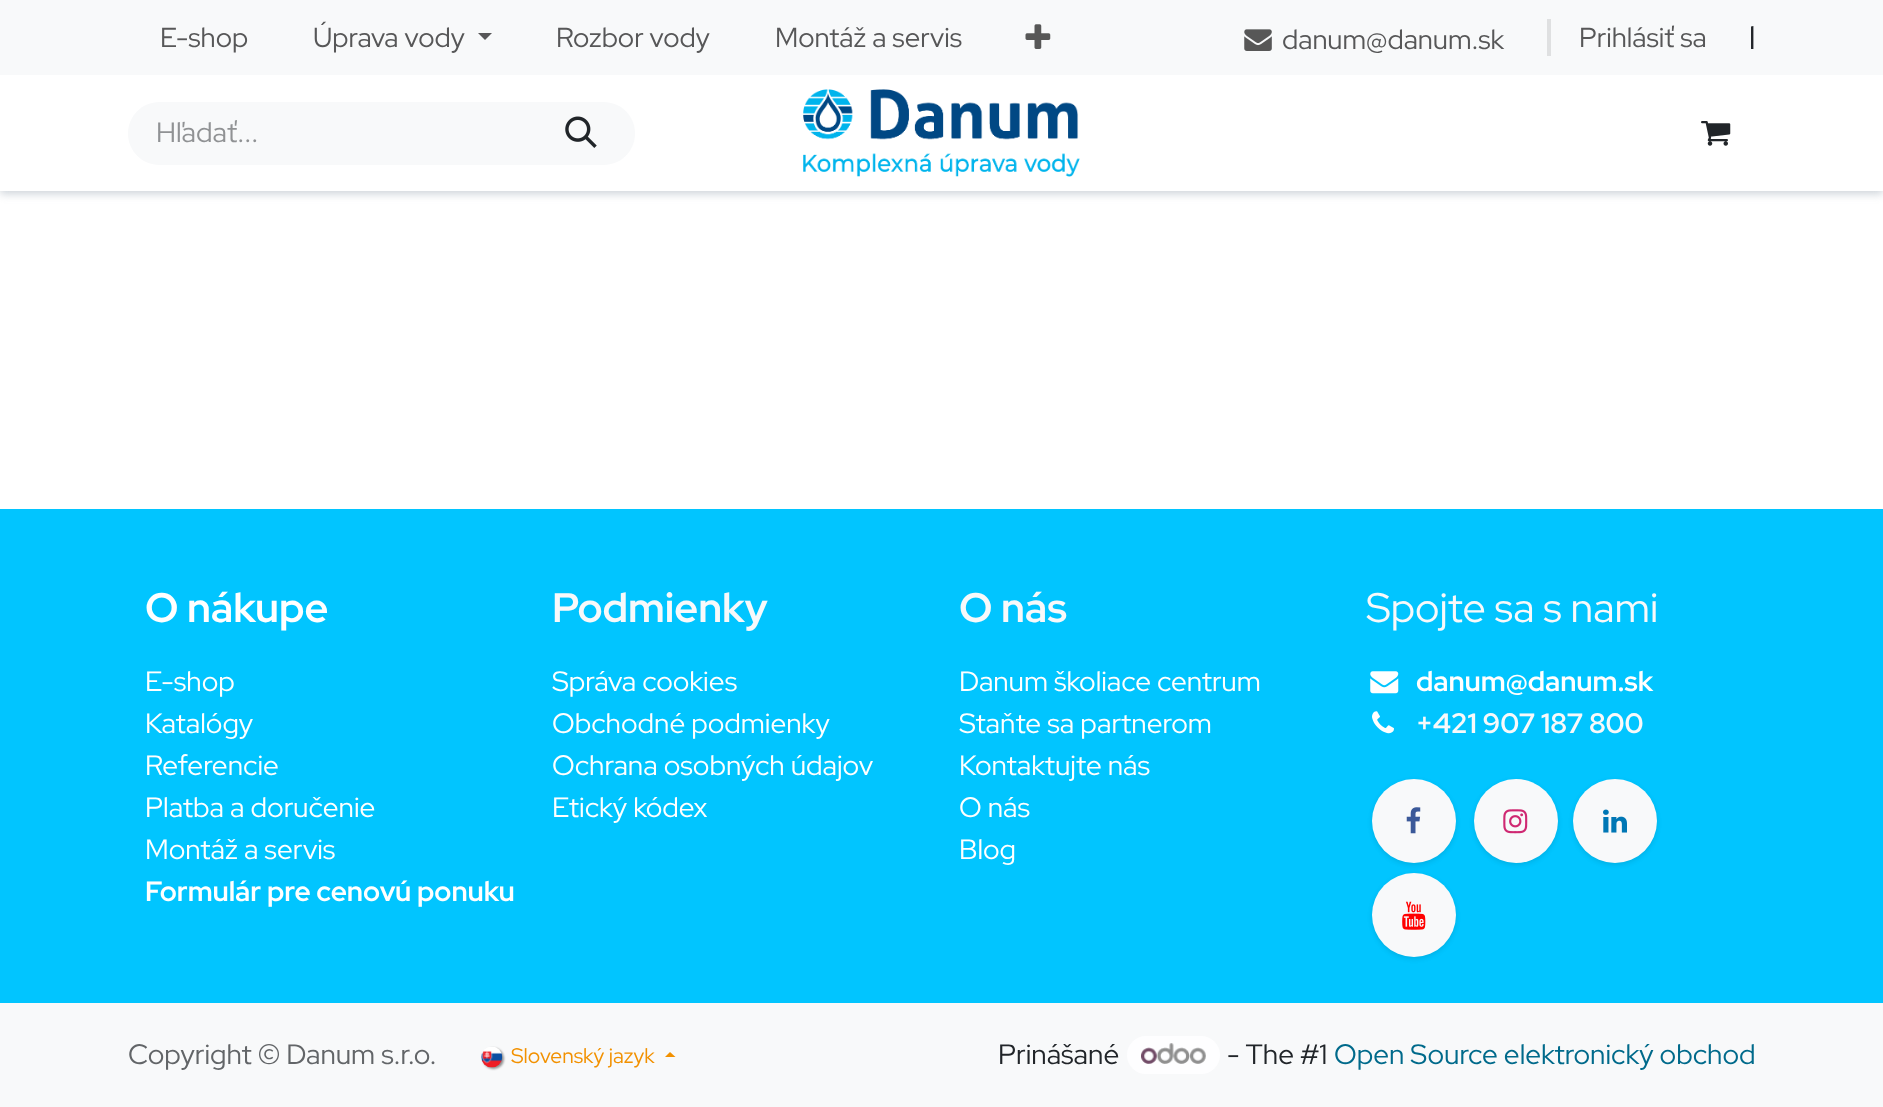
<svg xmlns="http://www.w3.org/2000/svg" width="1883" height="1107">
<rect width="100%" height="100%" fill="#fff"/>
<rect y="4" width="1883" height="190" fill="#ced4da" filter="blur(4.5px)"/>
<rect width="1883" height="75" fill="#f8f9fa"/>
<text x="160" y="47" style="font-family:Red Hat Display;font-size:27.5px;fill:#575758">E-shop</text>
<text x="313" y="47" style="font-family:Red Hat Display;font-size:27.5px;fill:#575758">Úprava vody</text>
<path d="M478 33h14l-7 7z" fill="#575758"/>
<text x="556" y="47" style="font-family:Red Hat Display;font-size:27.5px;fill:#575758">Rozbor vody</text>
<text x="775" y="47" style="font-family:Red Hat Display;font-size:27.5px;fill:#575758">Montáž a servis</text>
<image x="1025" y="24" width="26" height="25" href="media/1.png"/>
<image x="1244" y="29" width="28" height="22" href="media/2.png"/>
<text x="1282" y="49" style="font-family:Red Hat Display;font-size:27.5px;fill:#575758">danum@danum.sk</text>
<rect x="1547" y="19" width="4" height="37" fill="#dfe0e1"/>
<text x="1579" y="47" style="font-family:Red Hat Display;font-size:27.5px;fill:#575758">Prihlásiť sa</text>
<text x="1749" y="49" style="font-family:Red Hat Display;font-size:32px;fill:#212529">l</text>
<rect y="75" width="1883" height="116" fill="#fff"/>
<path d="M159.5 102h367.5v63h-367.5c-17.5 0-31.5-14-31.5-31.5c0-17.5 14-31.5 31.5-31.5z" fill="#f8f9fa"/>
<text x="156" y="142" style="font-family:Red Hat Display;font-size:28px;fill:#909294">Hľadať...</text>
<path d="M525 102h78.5c17.5 0 31.5 14 31.5 31.5c0 17.5-14 31.5-31.5 31.5h-78.5z" fill="#f8f9fa"/>
<image x="565" y="116" width="32" height="32" href="media/3.png"/>
<image x="803" y="89" width="277" height="88" href="media/4.png"/>
<image x="1701" y="121" width="30" height="25" href="media/5.png"/>
<rect y="509" width="1883" height="494" fill="#01c5ff"/>
<text x="145" y="622" style="font-family:Red Hat Display;font-size:41.25px;font-weight:bold;fill:#fff">O nákupe</text>
<text x="145" y="691" style="font-family:Red Hat Display;font-size:28px;fill:#fff">E-shop</text>
<text x="145" y="733" style="font-family:Red Hat Display;font-size:28px;fill:#fff">Katalógy</text>
<text x="145" y="775" style="font-family:Red Hat Display;font-size:28px;fill:#fff">Referencie</text>
<text x="145" y="817" style="font-family:Red Hat Display;font-size:28px;fill:#fff">Platba a doručenie</text>
<text x="145" y="859" style="font-family:Red Hat Display;font-size:28px;fill:#fff">Montáž a servis</text>
<text x="145" y="901" style="font-family:Red Hat Display;font-size:28px;font-weight:bold;fill:#fff">Formulár pre cenovú ponuku</text>
<text x="552" y="622" style="font-family:Red Hat Display;font-size:41.25px;font-weight:bold;fill:#f8f9fa">Podmienky</text>
<text x="552" y="691" style="font-family:Red Hat Display;font-size:28px;fill:#fff">Správa cookies</text>
<text x="552" y="733" style="font-family:Red Hat Display;font-size:28px;fill:#fff">Obchodné podmienky</text>
<text x="552" y="775" style="font-family:Red Hat Display;font-size:28px;fill:#fff">Ochrana osobných údajov</text>
<text x="552" y="817" style="font-family:Red Hat Display;font-size:28px;fill:#fff">Etický kódex</text>
<text x="959" y="622" style="font-family:Red Hat Display;font-size:41.25px;font-weight:bold;fill:#f8f9fa">O nás</text>
<text x="959" y="691" style="font-family:Red Hat Display;font-size:28px;fill:#fff">Danum školiace centrum</text>
<text x="959" y="733" style="font-family:Red Hat Display;font-size:28px;fill:#fff">Staňte sa partnerom</text>
<text x="959" y="775" style="font-family:Red Hat Display;font-size:28px;fill:#fff">Kontaktujte nás</text>
<text x="959" y="817" style="font-family:Red Hat Display;font-size:28px;fill:#fff">O nás</text>
<text x="959" y="859" style="font-family:Red Hat Display;font-size:28px;fill:#fff">Blog</text>
<text x="1366" y="622" style="font-family:Red Hat Display;font-size:41.25px;fill:#f8f9fa">Spojte sa s nami</text>
<image x="1370" y="671" width="29" height="23" href="media/6.png"/>
<text x="1416" y="691" style="font-family:Red Hat Display;font-size:28px;font-weight:bold;fill:#fff">danum@danum.sk</text>
<image x="1372" y="711" width="22" height="23" href="media/7.png"/>
<text x="1416" y="733" style="font-family:Red Hat Display;font-size:28px;font-weight:bold;fill:#f8f9fa">+421 907 187 800</text>
<rect x="1372" y="781" width="84" height="84" rx="42" fill="#0000001a" filter="blur(2.5px)"/>
<circle cx="1414" cy="821" r="42" fill="#f8f9fa"/>
<image x="1406" y="807" width="15" height="27" href="media/8.png"/>
<rect x="1474" y="781" width="84" height="84" rx="42" fill="#0000001a" filter="blur(2.5px)"/>
<circle cx="1516" cy="821" r="42" fill="#f8f9fa"/>
<image x="1503" y="809" width="25" height="25" href="media/9.png"/>
<rect x="1573" y="781" width="84" height="84" rx="42" fill="#0000001a" filter="blur(2.5px)"/>
<circle cx="1615" cy="821" r="42" fill="#f8f9fa"/>
<image x="1603" y="809" width="24" height="24" href="media/10.png"/>
<rect x="1372" y="875" width="84" height="84" rx="42" fill="#0000001a" filter="blur(2.5px)"/>
<circle cx="1414" cy="915" r="42" fill="#f8f9fa"/>
<image x="1402" y="901" width="24" height="29" href="media/11.png"/>
<rect y="1003" width="1883" height="104" fill="#f8f9fa"/>
<text x="128" y="1064" style="font-family:Red Hat Display;font-size:28px;fill:#626568">Copyright © Danum s.r.o.</text>
<rect x="483" y="1048" width="21" height="21" rx="10.5" fill="#0000006e" filter="blur(1px)"/>
<image x="481" y="1047" width="22" height="21" href="media/12.png"/>
<text x="511" y="1063" style="font-family:Red Hat Display;font-size:21px;fill:#f29100">Slovenský jazyk</text>
<path d="M675.5 1057h-10.5l5-5z" fill="#f29100"/>
<text x="998" y="1064" style="font-family:Red Hat Display;font-size:28px;fill:#212529">Prinášané</text>
<rect x="1126" y="1035" width="95" height="40" rx="20" fill="#fefeff" stroke="#f8f9fa" stroke-width="2"/>
<image x="1141" y="1043" width="65" height="21" href="media/13.png"/>
<text x="1227" y="1064" style="font-family:Red Hat Display;font-size:28px;fill:#212529">- The #1</text>
<text x="1334" y="1064" style="font-family:Red Hat Display;font-size:28px;fill:#006a8b">Open Source elektronický obchod</text>
</svg>
